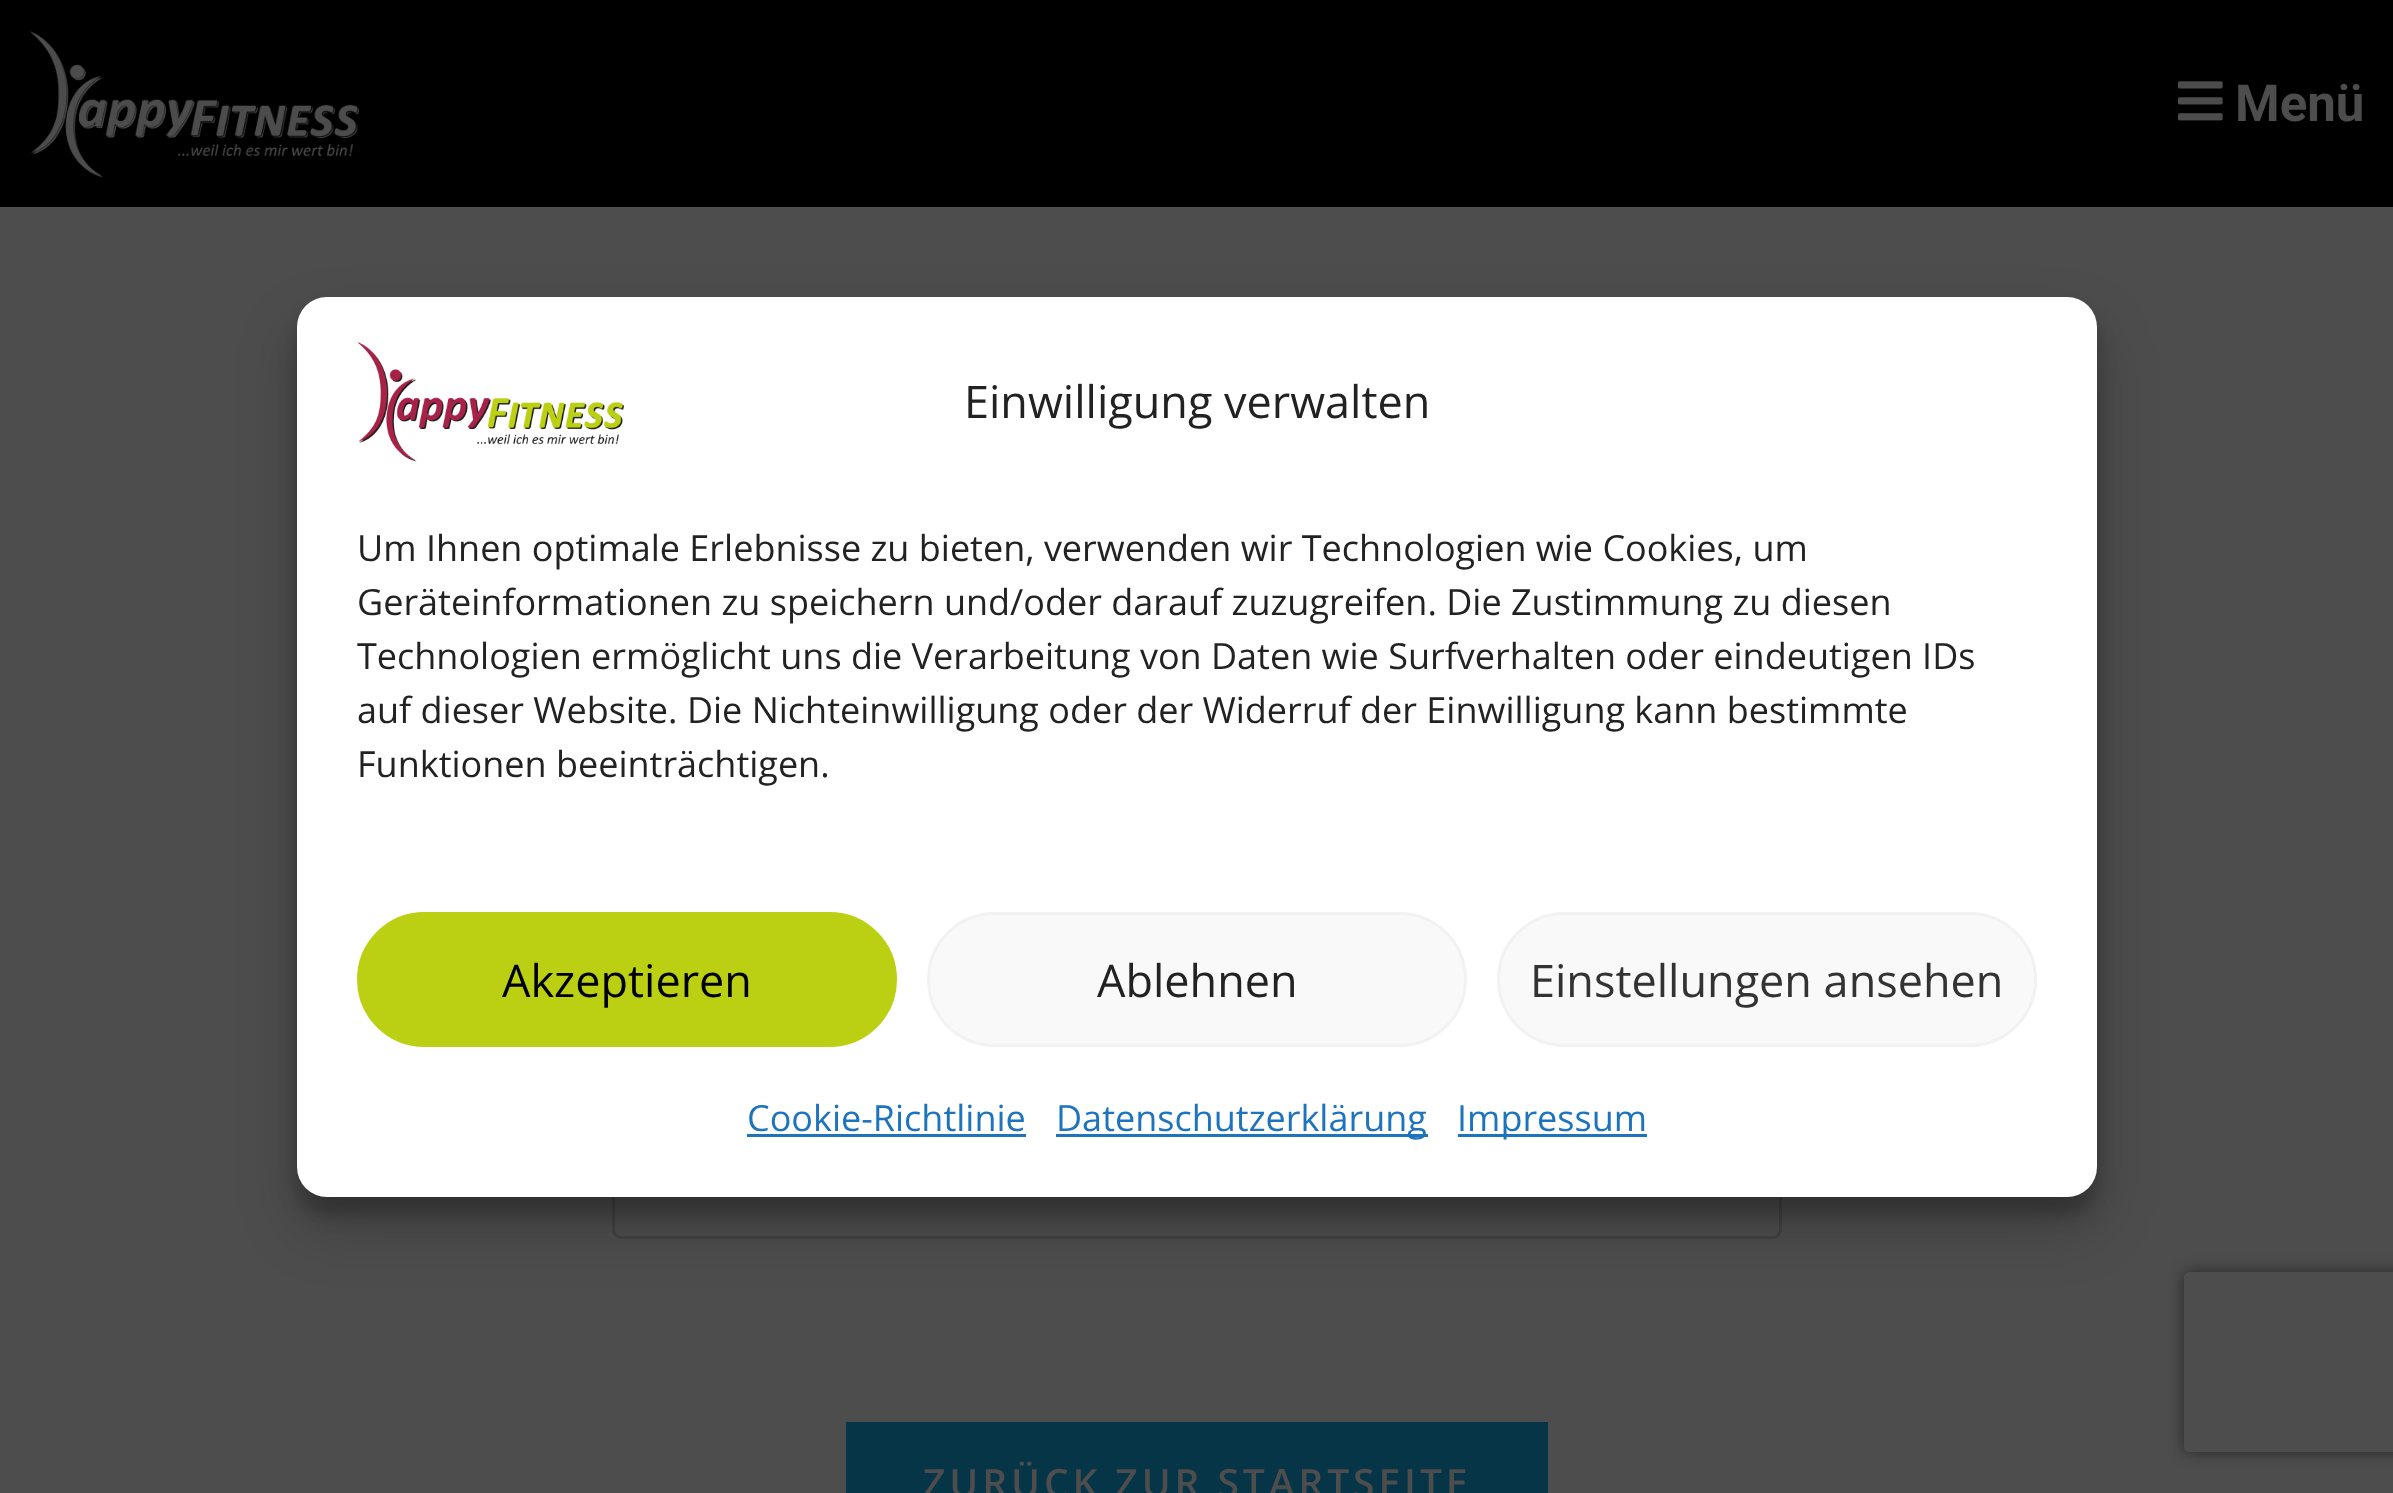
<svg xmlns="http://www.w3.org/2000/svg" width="2393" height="1493">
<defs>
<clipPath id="clip1"><path d="M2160 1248h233v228h-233zm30 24h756c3.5 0 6 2.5 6 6v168c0 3.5-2.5 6-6 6h-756c-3.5 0-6-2.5-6-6v-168c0-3.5 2.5-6 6-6z" clip-rule="evenodd"/></clipPath>
</defs>
<rect width="100%" height="100%" fill="#4d4d4d"/>
<rect width="2393" height="207" fill="#000"/>
<image x="30" y="31" width="330" height="146" href="media/1.png"/>
<image x="2178" y="81" width="45" height="40" href="media/2.png"/>
<text x="2235" y="121" style="font-family:Roboto;font-size:51px;font-weight:bold;fill:#4d4d4d">Menü</text>
<rect x="613.5" y="1120.5" width="1167" height="117" rx="7.5" fill="none" stroke="#424242" stroke-width="3"/>
<rect x="846" y="1422" width="702" height="71" fill="#063548"/>
<text x="923" y="1497" style="font-family:Open Sans;font-size:39px;font-weight:600;letter-spacing:3.9px;fill:#4d4d4d">ZURÜCK ZUR STARTSEITE</text>
<rect x="297" y="315" width="1800" height="900" rx="30" fill="#0000003b" filter="blur(9px)"/>
<rect x="297" y="327" width="1800" height="900" rx="30" fill="#00000030" filter="blur(30px)"/>
<rect x="297" y="297" width="1800" height="900" rx="30" fill="#fff"/>
<image x="357" y="342" width="267" height="120" href="media/3.png"/>
<text x="964" y="418" style="font-family:Open Sans;font-size:45px;fill:#222">Einwilligung verwalten</text>
<text x="357" y="561" style="font-family:Open Sans;font-size:36px;fill:#222">Um Ihnen optimale Erlebnisse zu bieten, verwenden wir Technologien wie Cookies, um</text>
<text x="357" y="615" style="font-family:Open Sans;font-size:36px;fill:#222">Geräteinformationen zu speichern und/oder darauf zuzugreifen. Die Zustimmung zu diesen</text>
<text x="357" y="669" style="font-family:Open Sans;font-size:36px;fill:#222">Technologien ermöglicht uns die Verarbeitung von Daten wie Surfverhalten oder eindeutigen IDs</text>
<text x="357" y="723" style="font-family:Open Sans;font-size:36px;fill:#222">auf dieser Website. Die Nichteinwilligung oder der Widerruf der Einwilligung kann bestimmte</text>
<text x="357" y="777" style="font-family:Open Sans;font-size:36px;fill:#222">Funktionen beeinträchtigen.</text>
<rect x="358.5" y="913.5" width="537" height="132" rx="66" fill="#bcd013" stroke="#bcd013" stroke-width="3"/>
<text x="502" y="997" style="font-family:Open Sans;font-size:45px;fill:#000">Akzeptieren</text>
<rect x="928.5" y="913.5" width="537" height="132" rx="66" fill="#f9f9f9" stroke="#f2f2f2" stroke-width="3"/>
<text x="1097" y="997" style="font-family:Open Sans;font-size:45px;fill:#222">Ablehnen</text>
<rect x="1498.5" y="913.5" width="537" height="132" rx="66" fill="#f9f9f9" stroke="#f2f2f2" stroke-width="3"/>
<text x="1530" y="997" style="font-family:Open Sans;font-size:45px;fill:#333">Einstellungen ansehen</text>
<text x="747" y="1131" style="font-family:Open Sans;font-size:36px;fill:#1e73be">Cookie-Richtlinie</text>
<rect x="747" y="1134" width="279" height="3" fill="#1e73be"/>
<rect x="1056" y="1134" width="372" height="3" fill="#1e73be"/>
<text x="1056" y="1131" style="font-family:Open Sans;font-size:36px;fill:#1e73be">Datenschutzerklärung</text>
<rect x="1458" y="1134" width="189" height="3" fill="#1e73be"/>
<text x="1457" y="1131" style="font-family:Open Sans;font-size:36px;fill:#1e73be">Impressum</text>
<g clip-path="url(#clip1)">
<rect x="2184" y="1272" width="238" height="180" rx="6" fill="#262626" filter="blur(7.5px)"/>
</g>
</svg>
